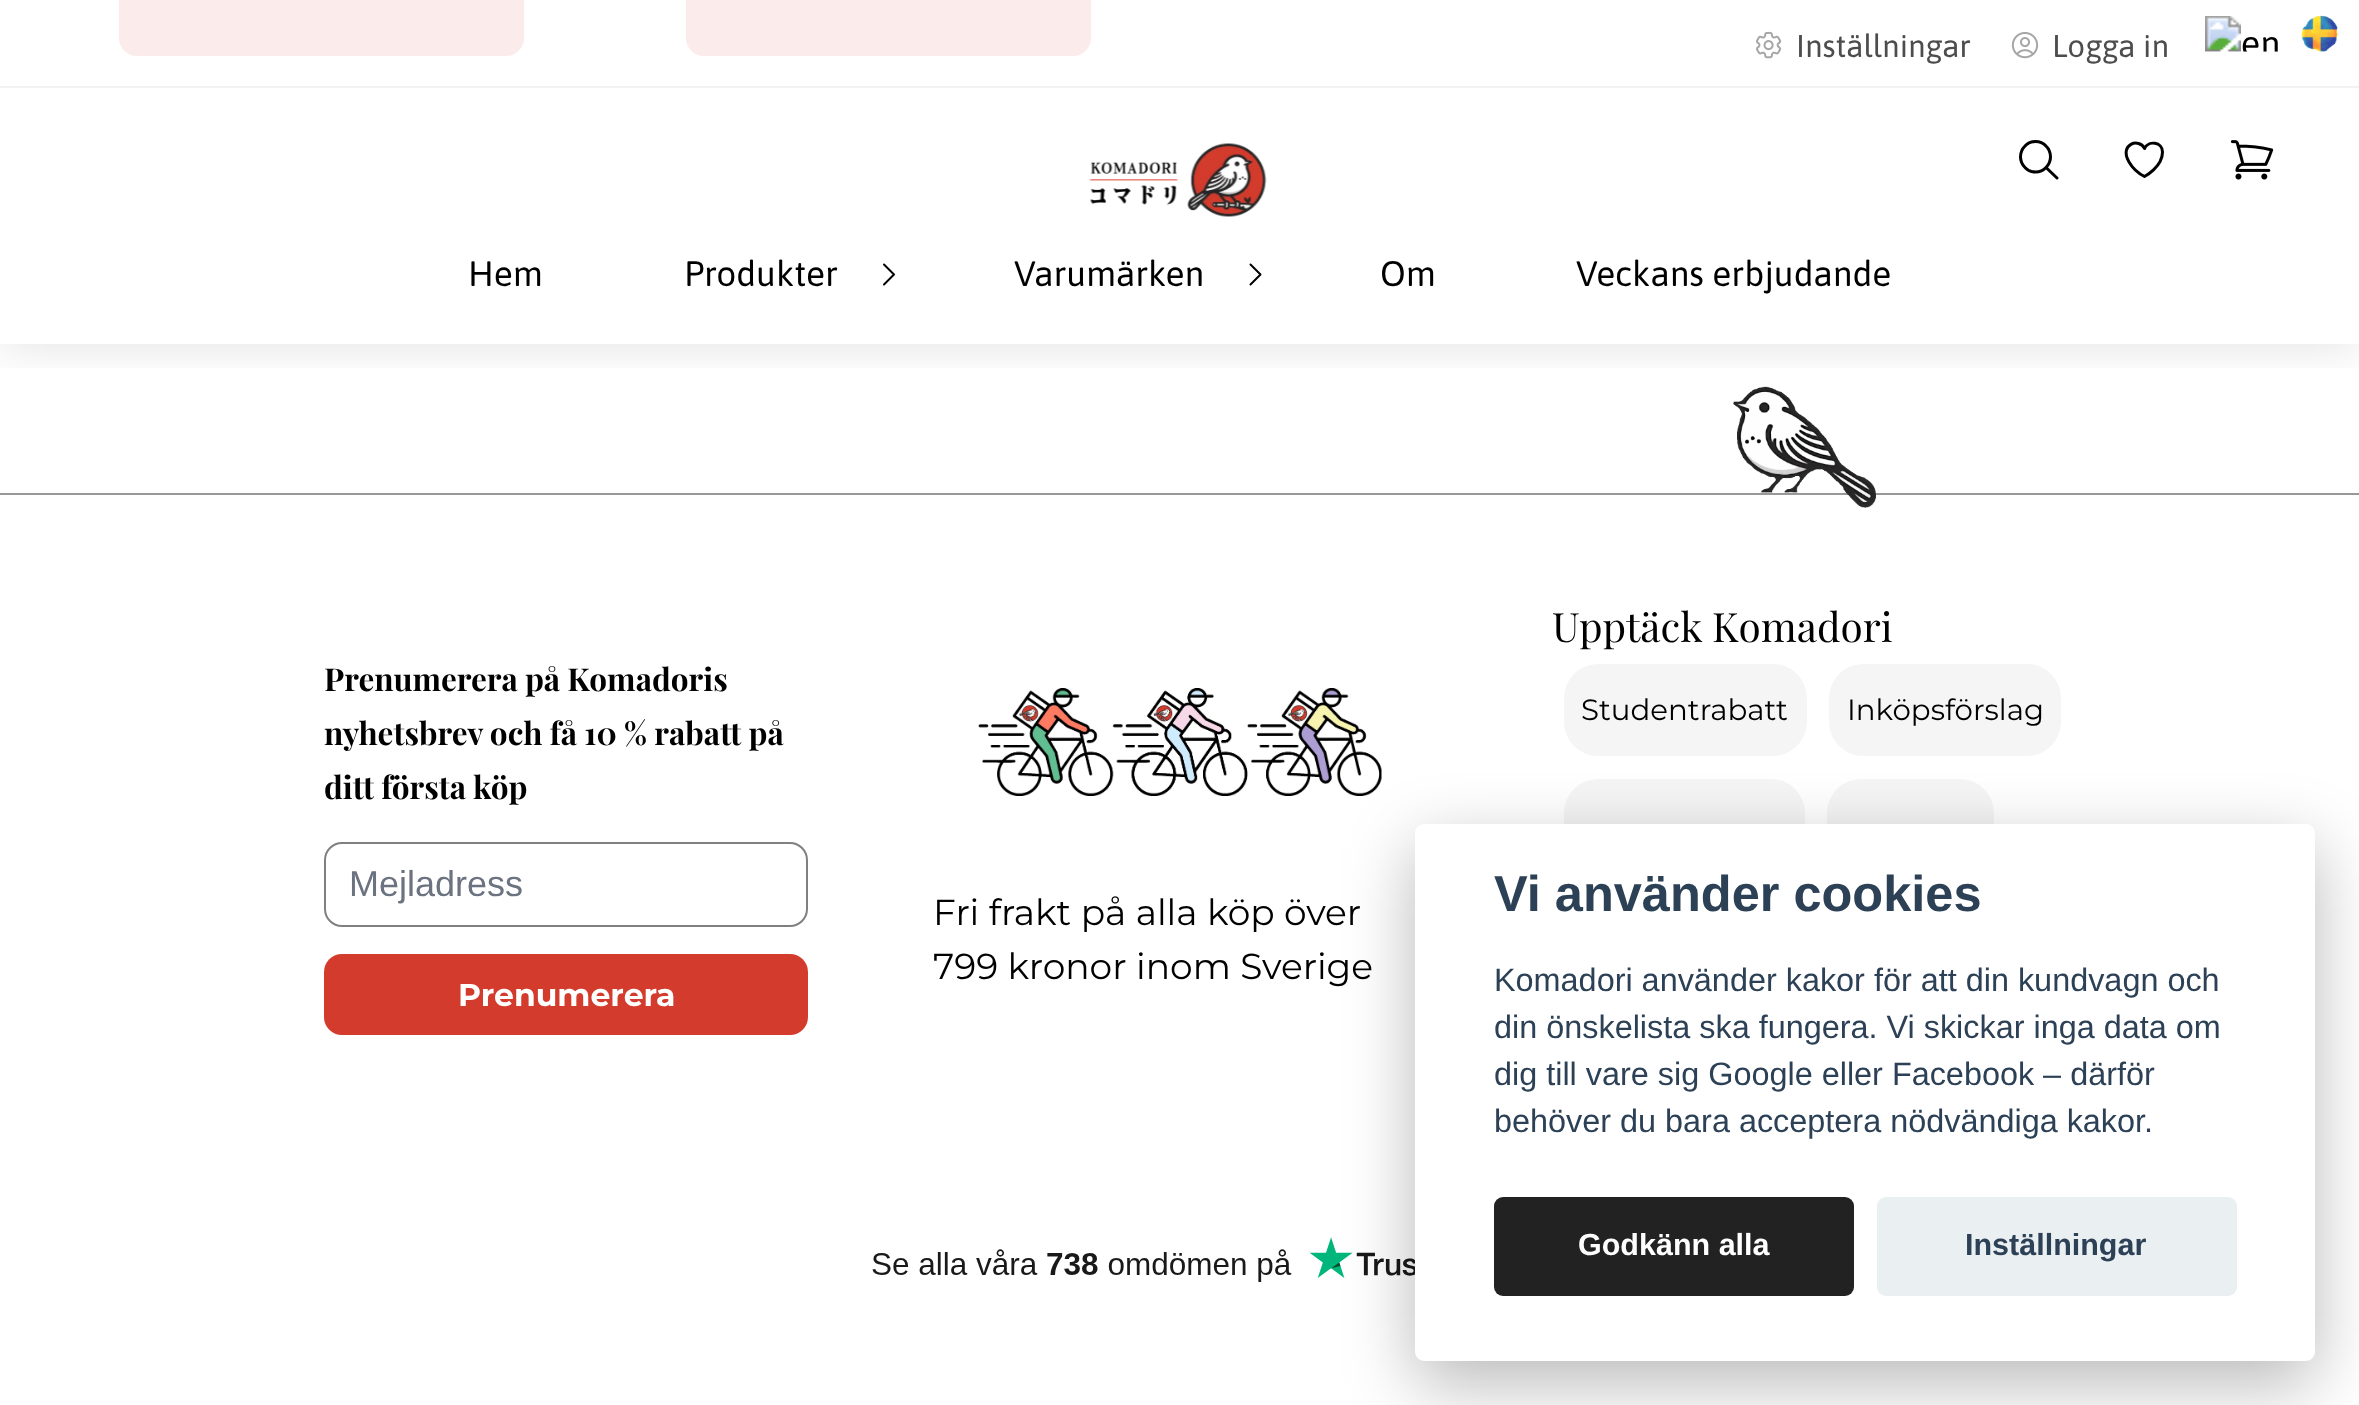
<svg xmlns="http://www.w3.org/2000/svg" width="2359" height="1405">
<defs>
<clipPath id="clip1"><rect x="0" y="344" width="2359" height="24"/></clipPath>
</defs>
<rect width="100%" height="100%" fill="#fff"/>
<rect x="119" y="-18" width="405" height="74" rx="18" fill="#fbebea"/>
<rect x="686" y="-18" width="405" height="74" rx="18" fill="#fbebea"/>
<rect y="493" width="2359" height="2" fill="#999"/>
<image x="1733" y="386" width="143" height="122" href="media/7.png"/>
<g clip-path="url(#clip1)">
<rect y="5" width="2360" height="344" fill="#0000001a" filter="blur(22.5px)"/>
</g>
<image x="1756" y="31" width="26" height="28" href="media/1.png"/>
<text x="1796" y="57" style="font-family:Asap;font-size:31.5px;fill:#4d4d4d">Inställningar</text>
<image x="2011" y="32" width="28" height="27" href="media/2.png"/>
<text x="2052" y="57" style="font-family:Asap;font-size:31.5px;fill:#4d4d4d">Logga in</text>
<image x="2205" y="16" width="73" height="36" href="media/3.png"/>
<image x="2301" y="15" width="37" height="37" href="media/4.png"/>
<rect y="86" width="2359" height="2" fill="#f2f2f2"/>
<image x="1089" y="143" width="178" height="74" href="media/5.png"/>
<path d="M2057 178l-11-10.5m0 0c6-6 6-15.5 0-21.5c-5.5-6-15.5-6-21 0c-6 6-6 15.5 0 21.5c5.5 6 15.5 6 21 0z" fill="none" stroke="#000" stroke-width="3" stroke-linecap="round" stroke-linejoin="round"/>
<path d="M2162.5 152c0-10-14-12-18-3.5c-5-11-26-4.5-15.5 13.5c3.5 6 9.5 11.5 15.5 14.5c0 0 18-9.5 18-24.5z" fill="none" stroke="#000" stroke-width="3" stroke-linecap="round" stroke-linejoin="round"/>
<image x="2230" y="140" width="44" height="40" href="media/6.png"/>
<text x="468" y="286" style="font-family:Asap;font-size:35.25px;fill:#000">Hem</text>
<text x="684" y="286" style="font-family:Asap;font-size:35.25px;fill:#000">Produkter</text>
<path d="M884 264.5l10 10l-10 10" fill="none" stroke="#000" stroke-width="2" stroke-linecap="round" stroke-linejoin="round"/>
<text x="1014" y="286" style="font-family:Asap;font-size:35.25px;fill:#000">Varumärken</text>
<path d="M1250.5 264.5l10 10l-10 10" fill="none" stroke="#000" stroke-width="2" stroke-linecap="round" stroke-linejoin="round"/>
<text x="1380" y="286" style="font-family:Asap;font-size:35.25px;fill:#000">Om</text>
<text x="1576" y="286" style="font-family:Asap;font-size:35.25px;fill:#000">Veckans erbjudande</text>
<text x="324" y="691" style="font-family:Playfair Display;font-size:31.5px;font-weight:bold;fill:#000">Prenumerera på Komadoris</text>
<text x="324" y="745" style="font-family:Playfair Display;font-size:31.5px;font-weight:bold;fill:#000">nyhetsbrev och få 10 % rabatt på</text>
<text x="324" y="799" style="font-family:Playfair Display;font-size:31.5px;font-weight:bold;fill:#000">ditt första köp</text>
<rect x="325" y="843" width="482" height="83" rx="17" fill="none" stroke="#808080" stroke-width="2"/>
<text x="349" y="896" style="font-family:Liberation Sans;font-size:36px;fill:#6b7280">Mejladress</text>
<rect x="324" y="954" width="484" height="81" rx="18" fill="#d33b2c"/>
<text x="458" y="1006" style="font-family:Montserrat;font-size:31.5px;font-weight:bold;fill:#fff">Prenumerera</text>
<image x="978" y="688" width="404" height="108" href="media/8.png"/>
<text x="933" y="925" style="font-family:Montserrat;font-size:36px;fill:#000">Fri frakt på alla köp över</text>
<text x="933" y="979" style="font-family:Montserrat;font-size:36px;fill:#000">799 kronor inom Sverige</text>
<text x="1552" y="642" style="font-family:Playfair Display;font-size:40.5px;fill:#000">Upptäck Komadori</text>
<rect x="1564" y="664" width="243" height="92" rx="34" fill="#f5f5f5"/>
<text x="1581" y="720" style="font-family:Montserrat;font-size:29.25px;fill:#000">Studentrabatt</text>
<rect x="1829" y="664" width="232" height="92" rx="34" fill="#f5f5f5"/>
<text x="1847" y="720" style="font-family:Montserrat;font-size:29.25px;fill:#000">Inköpsförslag</text>
<rect x="1564" y="779" width="241" height="92" rx="34" fill="#f5f5f5"/>
<rect x="1827" y="779" width="167" height="92" rx="34" fill="#f5f5f5"/>
<image x="872" y="1237" width="543" height="45" href="media/9.png"/>
<rect x="1415" y="846" width="900" height="538" rx="9" fill="#02020347" filter="blur(34px)"/>
<rect x="1415" y="824" width="900" height="537" rx="9" fill="#fff"/>
<text x="1494" y="911" style="font-family:Liberation Sans;font-size:50.5px;font-weight:bold;fill:#2d4156">Vi använder cookies</text>
<text x="1494" y="991" style="font-family:Liberation Sans;font-size:32.4px;fill:#2d4156">Komadori använder kakor för att din kundvagn och</text>
<text x="1494" y="1038" style="font-family:Liberation Sans;font-size:32.4px;fill:#2d4156">din önskelista ska fungera. Vi skickar inga data om</text>
<text x="1494" y="1085" style="font-family:Liberation Sans;font-size:32.4px;fill:#2d4156">dig till vare sig Google eller Facebook – därför</text>
<text x="1494" y="1132" style="font-family:Liberation Sans;font-size:32.4px;fill:#2d4156">behöver du bara acceptera nödvändiga kakor.</text>
<rect x="1494" y="1197" width="360" height="99" rx="9" fill="#222"/>
<text x="1578" y="1255" style="font-family:Liberation Sans;font-size:30.5px;font-weight:bold;fill:#fff">Godkänn alla</text>
<rect x="1877" y="1197" width="360" height="99" rx="9" fill="#eaeff2"/>
<text x="1965" y="1255" style="font-family:Liberation Sans;font-size:30.5px;font-weight:bold;fill:#2d4156">Inställningar</text>
</svg>
